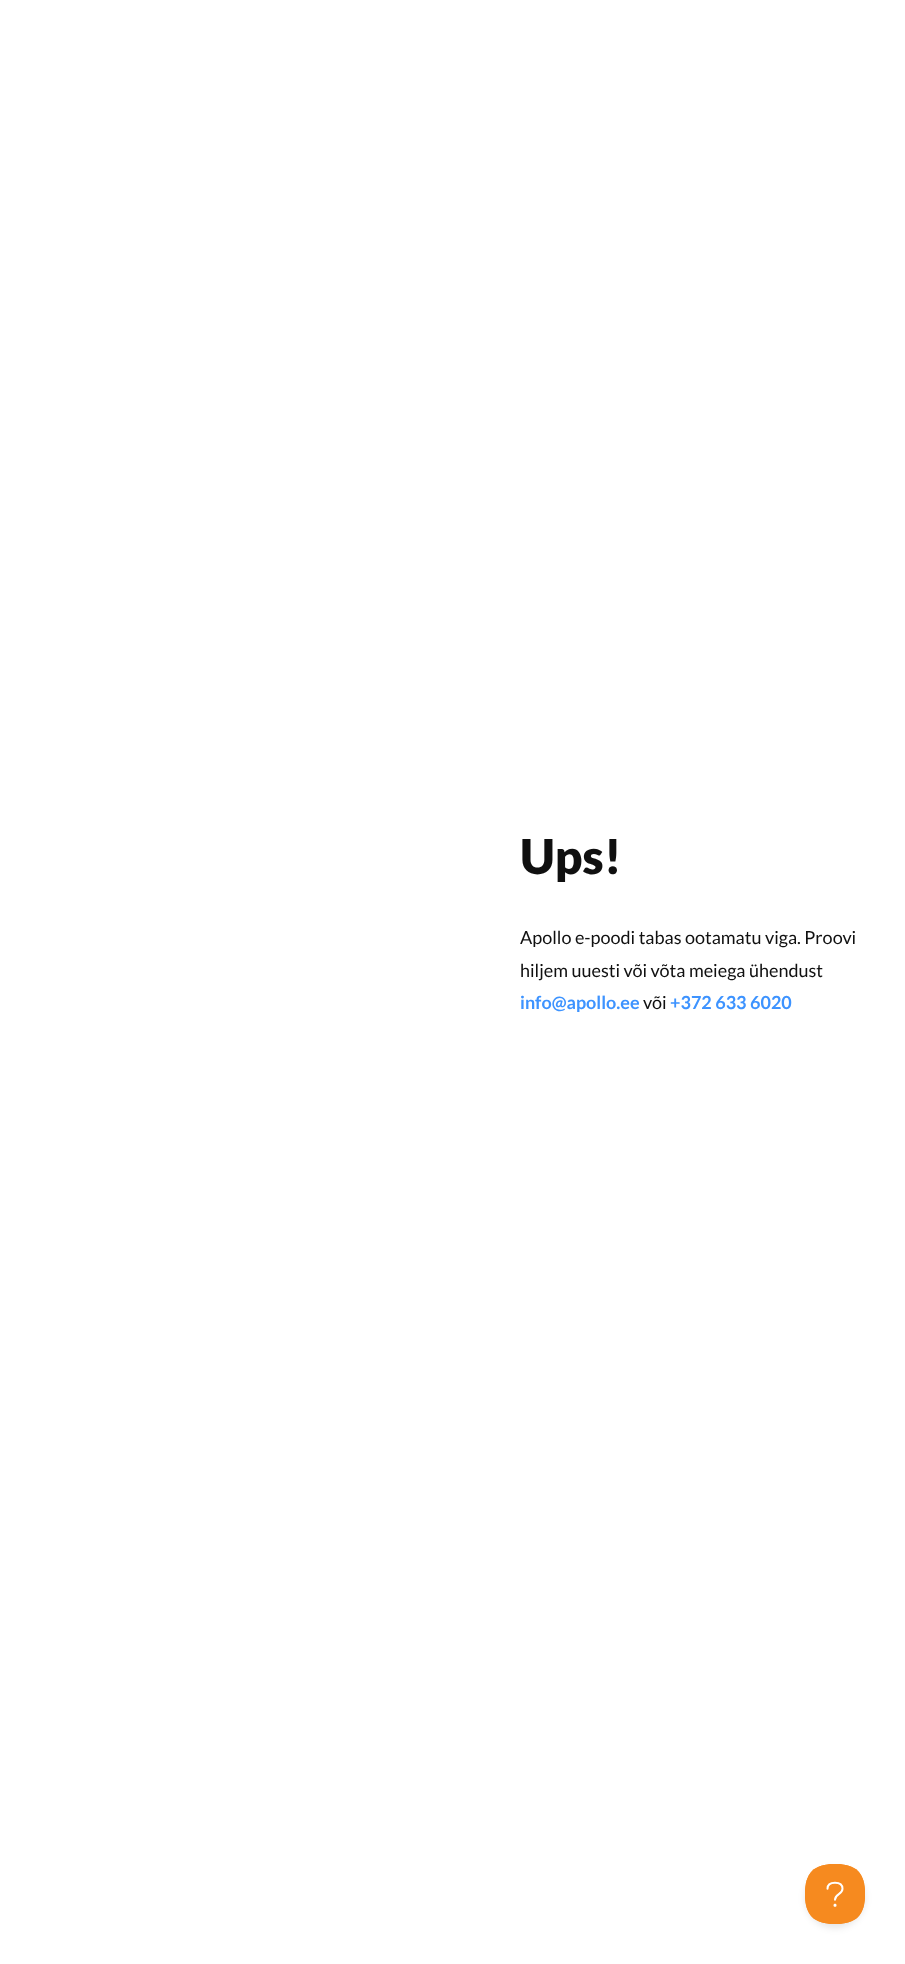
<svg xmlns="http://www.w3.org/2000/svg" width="905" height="1964">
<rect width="100%" height="100%" fill="#fff"/>
<text x="520" y="874" style="font-family:Lato;font-size:48px;font-weight:900;fill:#101010">Ups!</text>
<text x="520" y="944" style="font-family:Lato;font-size:18px;fill:#101010">Apollo e-poodi tabas ootamatu viga. Proovi</text>
<text x="520" y="977" style="font-family:Lato;font-size:18px;fill:#101010">hiljem uuesti või võta meiega ühendust</text>
<text x="520" y="1009" style="font-family:Lato;font-size:18px;font-weight:bold;fill:#3d93ff">info@apollo.ee</text>
<text x="643" y="1009" style="font-family:Lato;font-size:18px;fill:#101010">või</text>
<text x="670" y="1009" style="font-family:Lato;font-size:18px;font-weight:bold;fill:#3d93ff">+372 633 6020</text>
<rect x="805" y="1868" width="60" height="60" rx="30" fill="#0000001a" filter="blur(3.5px)"/>
<image x="805" y="1864" width="60" height="60" href="media/1.png"/>
</svg>
